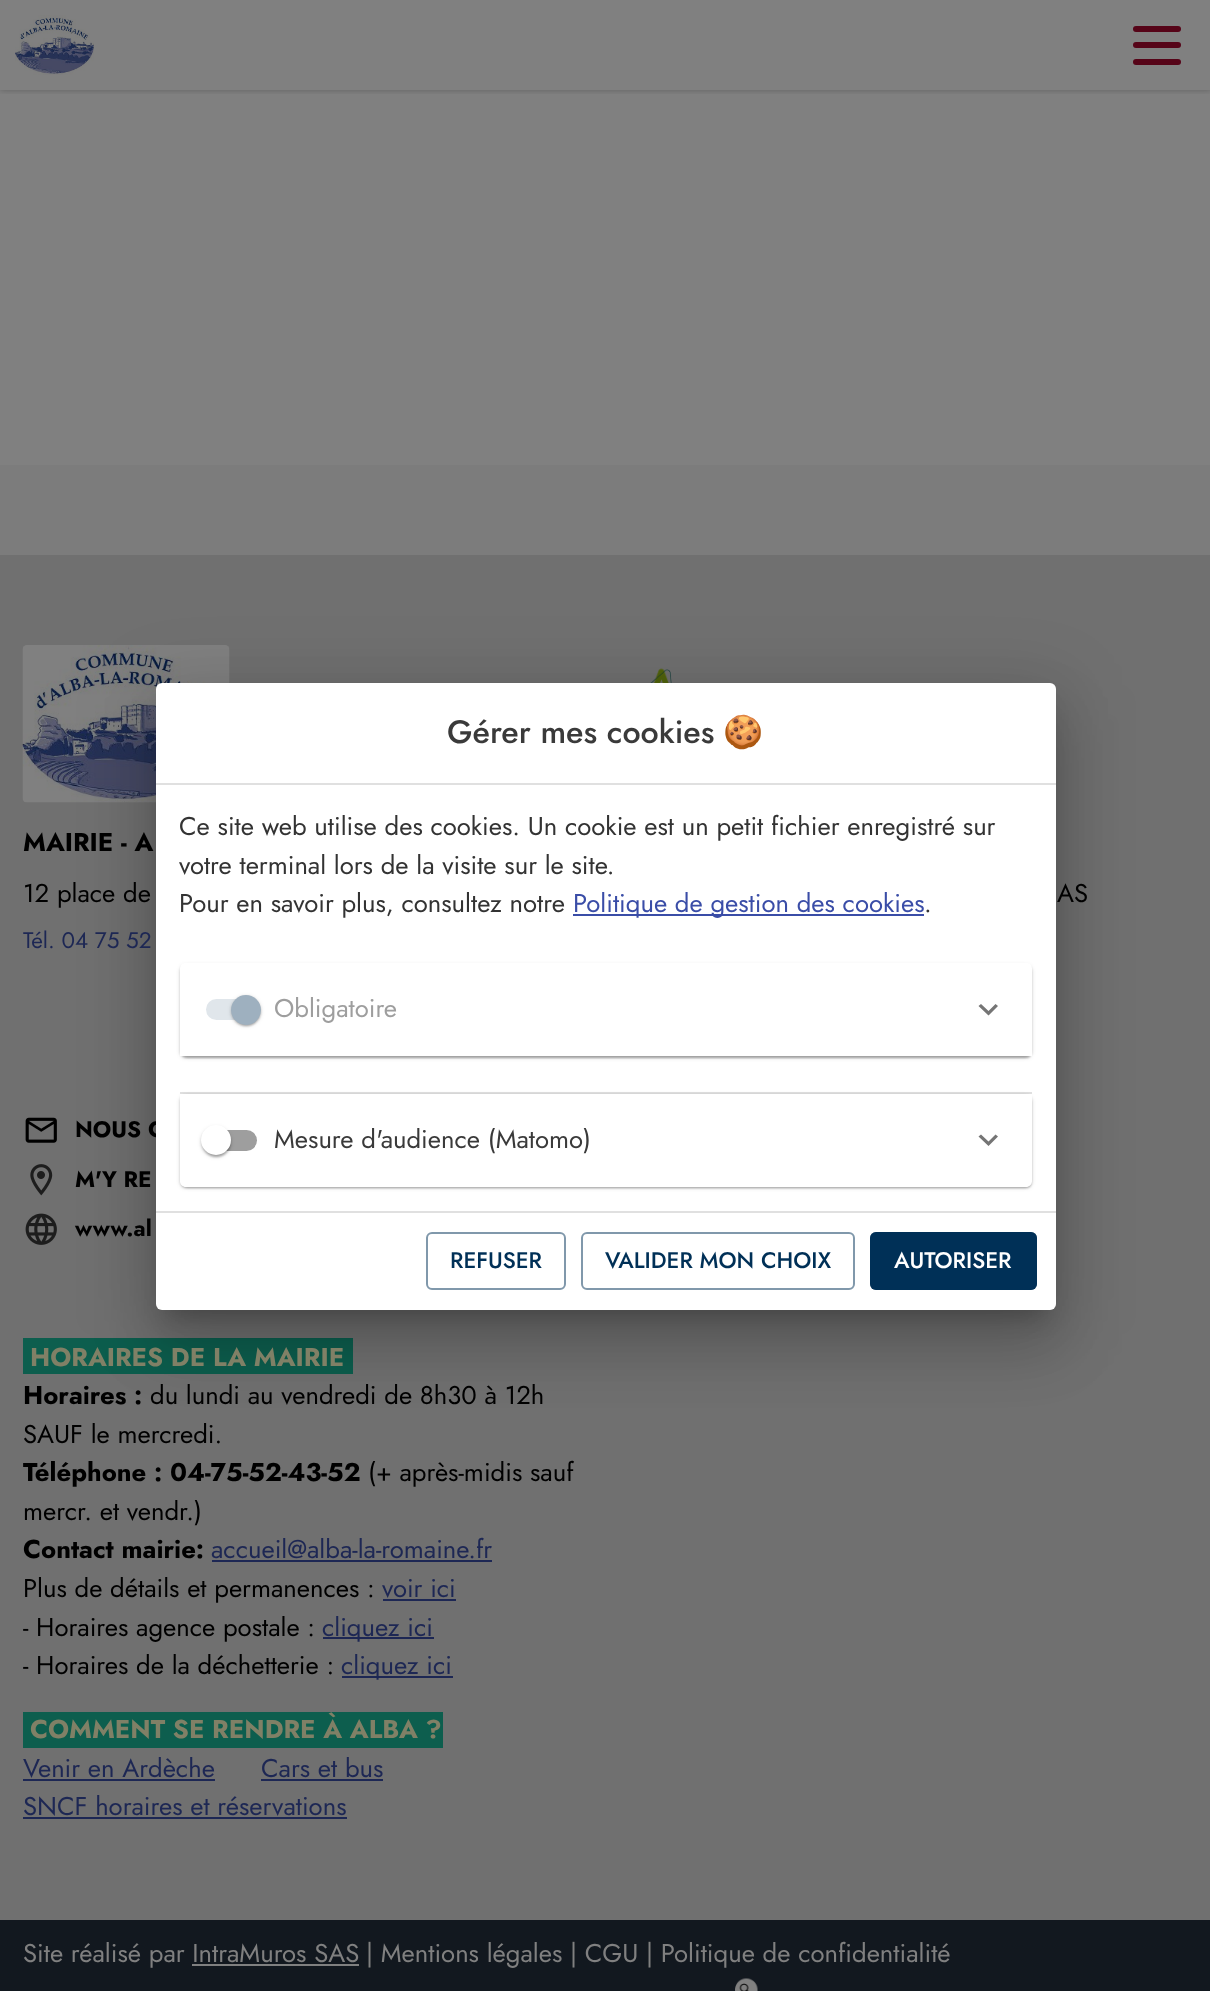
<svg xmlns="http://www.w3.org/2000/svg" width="1210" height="1991">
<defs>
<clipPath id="clip1"><path d="M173 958h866v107h-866zm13 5h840c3.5 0 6 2.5 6 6v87h-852v-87c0-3.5 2.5-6 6-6z" clip-rule="evenodd"/></clipPath>
<clipPath id="clip2"><path d="M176 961h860v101h-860zm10 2h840c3.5 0 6 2.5 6 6v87h-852v-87c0-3.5 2.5-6 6-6z" clip-rule="evenodd"/></clipPath>
<clipPath id="clip3"><rect x="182" y="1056" width="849" height="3"/></clipPath>
<clipPath id="clip4"><path d="M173 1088h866v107h-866zm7 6h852v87c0 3.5-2.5 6-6 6h-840c-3.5 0-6-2.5-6-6z" clip-rule="evenodd"/></clipPath>
<clipPath id="clip5"><path d="M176 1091h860v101h-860zm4 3h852v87c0 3.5-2.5 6-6 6h-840c-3.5 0-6-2.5-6-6z" clip-rule="evenodd"/></clipPath>
<clipPath id="clip6"><path d="M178 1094h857v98h-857zm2 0h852v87c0 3.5-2.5 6-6 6h-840c-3.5 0-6-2.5-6-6z" clip-rule="evenodd"/></clipPath>
<clipPath id="clip7"><rect x="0" y="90" width="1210" height="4"/></clipPath>
</defs>
<rect width="100%" height="100%" fill="#7c7c7c"/>
<rect y="555" width="1210" height="1365" fill="#707070"/>
<image x="22" y="645" width="208" height="158" href="media/2.png"/>
<image x="25" y="1117" width="32" height="26" href="media/3.png"/>
<image x="30" y="1164" width="23" height="32" href="media/4.png"/>
<image x="25" y="1213" width="32" height="32" href="media/5.png"/>
<image x="650" y="668" width="22" height="15" href="media/6.png"/>
<rect x="23" y="1338" width="330" height="36" fill="#0d5e4e"/>
<rect x="144" y="684" width="924" height="651" rx="18" fill="#0000001f" filter="blur(34.5px)"/>
<rect x="152" y="714" width="909" height="636" rx="11" fill="#00000024" filter="blur(28.5px)"/>
<rect x="167" y="710" width="879" height="606" fill="#00000033" filter="blur(11px)"/>
<text x="75" y="1137" style="font-family:Jost;font-size:22.5px;font-weight:bold;fill:#000">NOUS C</text>
<rect x="156" y="683" width="900" height="627" rx="6" fill="#fff"/>
<text x="447" y="743" style="font-family:Jost;font-size:32.25px;font-weight:500;fill:#3a3a3a">Gérer mes cookies</text>
<text x="723" y="743" style="font-family:Noto Color Emoji;font-size:32.25px;fill:#3a3a3a">🍪</text>
<rect x="156" y="783" width="900" height="2" fill="#e0e0e0"/>
<rect x="156" y="1211" width="900" height="2" fill="#e0e0e0"/>
<text x="179" y="835" style="font-family:Jost;font-size:25.7px;fill:#333">Ce site web utilise des cookies. Un cookie est un petit fichier enregistré sur</text>
<text x="179" y="874" style="font-family:Jost;font-size:25.7px;fill:#333">votre terminal lors de la visite sur le site.</text>
<text x="179" y="912" style="font-family:Jost;font-size:25.7px;fill:#333">Pour en savoir plus, consultez notre</text>
<rect x="573" y="914" width="351" height="2" fill="#3a4da7"/>
<text x="573" y="912" style="font-family:Jost;font-size:25.7px;fill:#3a4da7">Politique de gestion des cookies</text>
<text x="924" y="912" style="font-family:Jost;font-size:25.7px;fill:#333">.</text>
<g clip-path="url(#clip1)">
<rect x="180" y="965" width="852" height="93" rx="6" fill="#0000001f" filter="blur(2px)"/>
</g>
<g clip-path="url(#clip2)">
<rect x="180" y="965" width="852" height="93" rx="6" fill="#00000024" filter="blur(1px)"/>
</g>
<g clip-path="url(#clip3)">
<rect x="182" y="968" width="849" height="90" rx="5" fill="#00000033" filter="blur(1px)"/>
</g>
<rect x="206" y="999" width="51" height="21" rx="10.5" fill="#e0e6eb"/>
<rect x="231" y="996" width="30" height="30" rx="15" fill="#0000001f" filter="blur(2px)"/>
<rect x="231" y="996" width="30" height="30" rx="15" fill="#00000024" filter="blur(1px)"/>
<rect x="233" y="999" width="27" height="27" rx="13.5" fill="#00000033" filter="blur(1px)"/>
<circle cx="246" cy="1010" r="15" fill="#9eb0bf"/>
<text x="274" y="1017" style="font-family:Jost;font-size:25.7px;fill:#9e9e9e">Obligatoire</text>
<path d="M995.5 1004l-7 7l-7.5-7l-2.5 2l10 9.5l9.5-9.5z" fill="#757575"/>
<g clip-path="url(#clip4)">
<rect x="180" y="1095" width="852" height="93" rx="6" fill="#0000001f" filter="blur(2px)"/>
</g>
<g clip-path="url(#clip5)">
<rect x="180" y="1095" width="852" height="93" rx="6" fill="#00000024" filter="blur(1px)"/>
</g>
<g clip-path="url(#clip6)">
<rect x="182" y="1098" width="849" height="90" rx="5" fill="#00000033" filter="blur(1px)"/>
</g>
<rect x="180" y="1092" width="852" height="2" fill="#0000001f"/>
<rect x="206" y="1130" width="51" height="21" rx="10.5" fill="#9e9e9e"/>
<rect x="201" y="1127" width="30" height="30" rx="15" fill="#0000001f" filter="blur(2px)"/>
<rect x="201" y="1127" width="30" height="30" rx="15" fill="#00000024" filter="blur(1px)"/>
<rect x="203" y="1130" width="27" height="27" rx="13.5" fill="#00000033" filter="blur(1px)"/>
<circle cx="216" cy="1140" r="15" fill="#fff"/>
<text x="274" y="1148" style="font-family:Jost;font-size:25.7px;fill:#3a3a3a">Mesure d'audience (Matomo)</text>
<path d="M995.5 1134.5l-7 7l-7.5-7l-2.5 2l10 9.5l9.5-9.5z" fill="#757575"/>
<rect x="427" y="1233" width="138" height="56" rx="5" fill="none" stroke="#8098ab" stroke-width="2"/>
<text x="450" y="1268" style="font-family:Jost;font-size:22.5px;font-weight:500;fill:#003057">REFUSER</text>
<rect x="582" y="1233" width="272" height="56" rx="5" fill="none" stroke="#8098ab" stroke-width="2"/>
<text x="605" y="1268" style="font-family:Jost;font-size:22.5px;font-weight:500;fill:#003057">VALIDER MON CHOIX</text>
<rect x="870" y="1232" width="167" height="58" rx="6" fill="#003057"/>
<rect x="871" y="1233" width="165" height="56" rx="5" fill="none" stroke="#00305780" stroke-width="2"/>
<text x="894" y="1268" style="font-family:Jost;font-size:22.5px;font-weight:500;fill:#fff">AUTORISER</text>
<rect width="1210" height="465" fill="#808080"/>
<g clip-path="url(#clip7)">
<rect width="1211" height="90" fill="#00000040" filter="blur(3px)"/>
</g>
<image x="15" y="15" width="79" height="60" href="media/1.png"/>
<rect x="1133" y="26" width="48" height="6" rx="3" fill="#560418"/>
<rect x="1133" y="42" width="48" height="6" rx="3" fill="#560418"/>
<rect x="1133" y="59" width="48" height="6" rx="3" fill="#560418"/>
<text x="23" y="851" style="font-family:Jost;font-size:25.7px;font-weight:bold;fill:#000">MAIRIE - A</text>
<text x="23" y="902" style="font-family:Jost;font-size:25.7px;fill:#000">12 place de</text>
<text x="23" y="948" style="font-family:Jost;font-size:22.5px;fill:#1d2754">Tél. 04 75 52</text>
<text x="75" y="1187" style="font-family:Jost;font-size:22.5px;font-weight:bold;fill:#000">M'Y RE</text>
<text x="75" y="1236" style="font-family:Jost;font-size:22.5px;font-weight:bold;fill:#000">www.al</text>
<text x="1057" y="902" style="font-family:Jost;font-size:25.7px;fill:#000">AS</text>
<text x="30" y="1366" style="font-family:Jost;font-size:25.7px;font-weight:bold;fill:#808066">HORAIRES DE LA MAIRIE</text>
<text x="23" y="1404" style="font-family:Jost;font-size:25.7px;font-weight:bold;fill:#000">Horaires :</text>
<text x="150" y="1404" style="font-family:Jost;font-size:25.7px;fill:#000">du lundi au vendredi de 8h30 à 12h</text>
<text x="23" y="1443" style="font-family:Jost;font-size:25.7px;fill:#000">SAUF le mercredi.</text>
<text x="23" y="1481" style="font-family:Jost;font-size:25.7px;font-weight:bold;fill:#000">Téléphone : 04-75-52-43-52</text>
<text x="368" y="1481" style="font-family:Jost;font-size:25.7px;fill:#000">(+ après-midis sauf</text>
<text x="23" y="1520" style="font-family:Jost;font-size:25.7px;fill:#000">mercr. et vendr.)</text>
<text x="23" y="1558" style="font-family:Jost;font-size:25.7px;font-weight:bold;fill:#000">Contact mairie:</text>
<text x="211" y="1558" style="font-family:Jost;font-size:25.7px;fill:#1d2754">accueil@alba-la-romaine.fr</text>
<rect x="212" y="1560" width="280" height="2" fill="#1d2754"/>
<text x="23" y="1597" style="font-family:Jost;font-size:25.7px;fill:#000">Plus de détails et permanences :</text>
<text x="382" y="1597" style="font-family:Jost;font-size:25.7px;fill:#1d2754">voir ici</text>
<rect x="383" y="1599" width="73" height="2" fill="#1d2754"/>
<text x="23" y="1636" style="font-family:Jost;font-size:25.7px;fill:#000">- Horaires agence postale :</text>
<rect x="323" y="1637" width="111" height="2" fill="#1d2754"/>
<text x="322" y="1636" style="font-family:Jost;font-size:25.7px;fill:#1d2754">cliquez ici</text>
<text x="23" y="1674" style="font-family:Jost;font-size:25.7px;fill:#000">- Horaires de la déchetterie :</text>
<rect x="342" y="1676" width="111" height="2" fill="#1d2754"/>
<text x="341" y="1674" style="font-family:Jost;font-size:25.7px;fill:#1d2754">cliquez ici</text>
<rect x="23" y="1712" width="420" height="36" fill="#0d5e4e"/>
<text x="30" y="1738" style="font-family:Jost;font-size:25.7px;font-weight:bold;fill:#808066">COMMENT SE RENDRE À ALBA ?</text>
<text x="23" y="1777" style="font-family:Jost;font-size:25.7px;fill:#1d2754">Venir en Ardèche</text>
<rect x="23" y="1779" width="192" height="2" fill="#1d2754"/>
<text x="261" y="1777" style="font-family:Jost;font-size:25.7px;fill:#1d2754">Cars et bus</text>
<rect x="261" y="1779" width="122" height="2" fill="#1d2754"/>
<text x="23" y="1815" style="font-family:Jost;font-size:25.7px;fill:#1d2754">SNCF horaires et réservations</text>
<rect x="23" y="1817" width="324" height="2" fill="#1d2754"/>
<rect y="1920" width="1210" height="71" fill="#12181f"/>
<text x="23" y="1962" style="font-family:Jost;font-size:25.7px;fill:#808080">Site réalisé par IntraMuros SAS</text>
<rect x="192" y="1964" width="167" height="2" fill="#808080"/>
<text x="366" y="1962" style="font-family:Jost;font-size:25.7px;fill:#808080">| Mentions légales</text>
<text x="570" y="1962" style="font-family:Jost;font-size:25.7px;fill:#808080">| CGU | Politique de confidentialité</text>
<image x="735" y="1978" width="23" height="13" href="media/7.png"/>
</svg>
